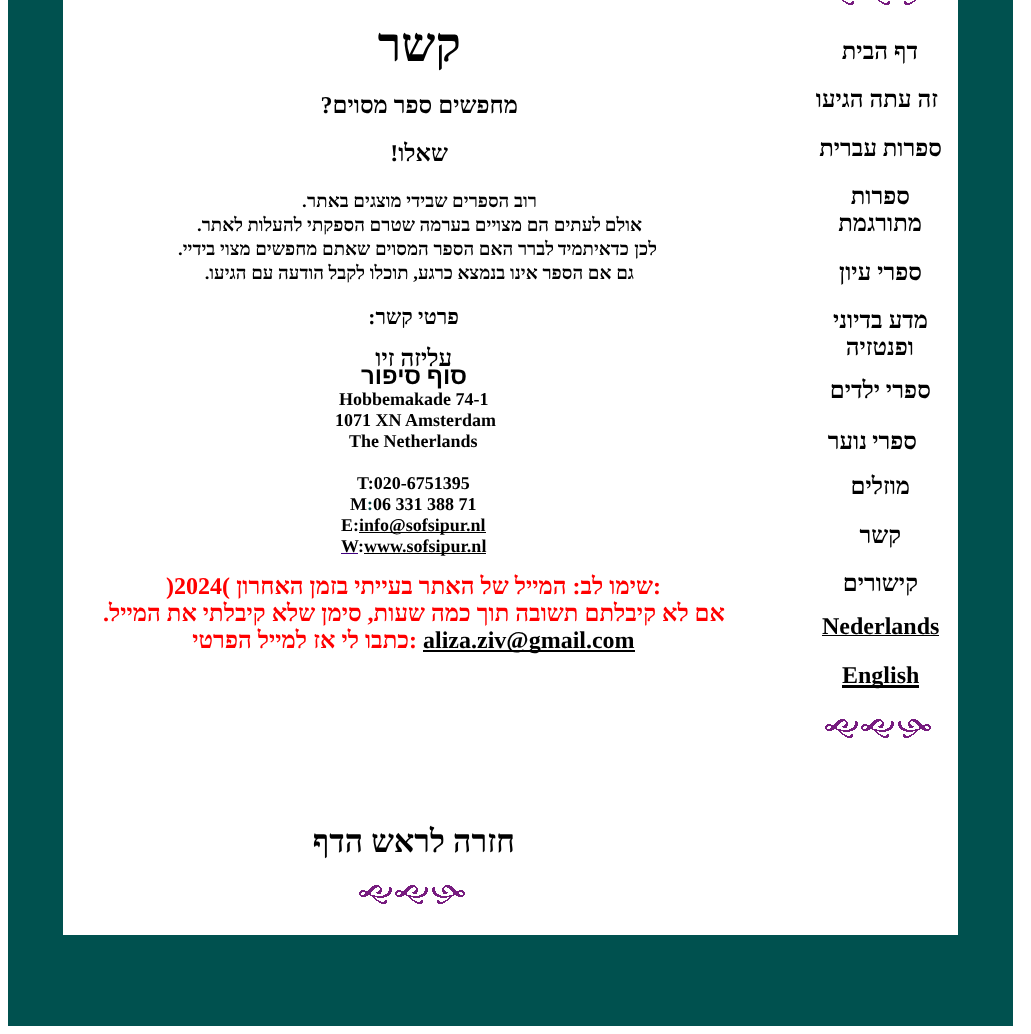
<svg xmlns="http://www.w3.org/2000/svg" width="1031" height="1034">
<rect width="100%" height="100%" fill="#fff"/>
<rect x="8" width="1005" height="1026" fill="#00514f"/>
<rect x="63" width="895" height="935" fill="#fff"/>
<image x="842" y="0" width="74" height="5" href="media/1.png"/>
<text x="918" y="59" style="font-family:Liberation Serif;font-size:24px;font-weight:bold;direction:rtl;fill:#000">דף הבית</text>
<text x="938" y="107" style="font-family:Liberation Serif;font-size:24px;font-weight:bold;direction:rtl;fill:#000">זה עתה הגיעו</text>
<text x="942" y="156" style="font-family:Liberation Serif;font-size:24px;font-weight:bold;direction:rtl;fill:#000">ספרות</text>
<text x="877" y="156" style="font-family:Liberation Serif;font-size:24px;font-weight:bold;direction:rtl;fill:#000">עברית</text>
<text x="910" y="204" style="font-family:Liberation Serif;font-size:24px;font-weight:bold;direction:rtl;fill:#000">ספרות</text>
<text x="922" y="231" style="font-family:Liberation Serif;font-size:24px;font-weight:bold;direction:rtl;fill:#000">מתורג</text>
<text x="867" y="231" style="font-family:Liberation Serif;font-size:24px;font-weight:bold;direction:rtl;fill:#000">מת</text>
<text x="922" y="280" style="font-family:Liberation Serif;font-size:24px;font-weight:bold;direction:rtl;fill:#000">ספרי עיון</text>
<text x="928" y="328" style="font-family:Liberation Serif;font-size:24px;font-weight:bold;direction:rtl;fill:#000">מדע בדיוני</text>
<text x="914" y="355" style="font-family:Liberation Serif;font-size:24px;font-weight:bold;direction:rtl;fill:#000">ופנטזיה</text>
<text x="931" y="398" style="font-family:Liberation Serif;font-size:24px;font-weight:bold;direction:rtl;fill:#000">ס</text>
<text x="917" y="398" style="font-family:Liberation Serif;font-size:24px;font-weight:bold;direction:rtl;fill:#000">פרי</text>
<text x="880" y="398" style="font-family:Liberation Serif;font-size:24px;font-weight:bold;direction:rtl;fill:#000">ילדים</text>
<text x="917" y="449" style="font-family:Liberation Serif;font-size:24px;font-weight:bold;direction:rtl;fill:#000">ספרי</text>
<text x="867" y="449" style="font-family:Liberation Serif;font-size:24px;font-weight:bold;direction:rtl;fill:#000">נוער</text>
<text x="910" y="494" style="font-family:Liberation Serif;font-size:24px;font-weight:bold;direction:rtl;fill:#000">מוזלים</text>
<text x="901" y="543" style="font-family:Liberation Serif;font-size:24px;font-weight:bold;direction:rtl;fill:#000">קשר</text>
<text x="918" y="591" style="font-family:Liberation Serif;font-size:24px;font-weight:bold;direction:rtl;fill:#000">קישורים</text>
<text x="822" y="634" style="font-family:Liberation Serif;font-size:24px;font-weight:bold;fill:#000">Nederlands</text>
<rect x="822" y="635" width="117" height="1" fill="#000"/>
<rect x="842" y="685" width="77" height="3" fill="#000"/>
<text x="842" y="683" style="font-family:Liberation Serif;font-size:24px;font-weight:bold;fill:#000">English</text>
<image x="825" y="719" width="106" height="19" href="media/2.png"/>
<text x="461" y="61" style="font-family:Liberation Serif;font-size:48px;font-weight:bold;direction:rtl;fill:#000">קשר</text>
<text x="518" y="113" style="font-family:Liberation Serif;font-size:24px;font-weight:bold;direction:rtl;fill:#000">מחפשים ספר מסוים?</text>
<text x="448" y="161" style="font-family:Liberation Serif;font-size:24px;font-weight:bold;direction:rtl;fill:#000">שאלו!</text>
<text x="537" y="207" style="font-family:Liberation Serif;font-size:18.7px;font-weight:bold;direction:rtl;fill:#000">רוב הספרים שבידי מוצגים באתר</text>
<text x="302" y="207" style="font-family:Liberation Serif;font-size:18.7px;font-weight:bold;fill:#000">.</text>
<text x="642" y="231" style="font-family:Liberation Serif;font-size:18.7px;font-weight:bold;direction:rtl;fill:#000">אולם</text>
<text x="601" y="231" style="font-family:Liberation Serif;font-size:18.7px;font-weight:bold;direction:rtl;fill:#000">לעתים הם מצויים בערמה שטרם הספקתי להעלות</text>
<text x="243" y="231" style="font-family:Liberation Serif;font-size:18.7px;font-weight:bold;direction:rtl;fill:#000">לאתר.</text>
<text x="657" y="255" style="font-family:Liberation Serif;font-size:18.7px;font-weight:bold;direction:rtl;fill:#000">לכן</text>
<text x="629" y="255" style="font-family:Liberation Serif;font-size:18.7px;font-weight:bold;direction:rtl;fill:#000">כדאי</text>
<text x="594" y="255" style="font-family:Liberation Serif;font-size:18.7px;font-weight:bold;direction:rtl;fill:#000">תמיד</text>
<text x="554" y="255" style="font-family:Liberation Serif;font-size:18.7px;font-weight:bold;direction:rtl;fill:#000">לברר האם הספר המסוים שאתם מחפשים מצוי בידיי.</text>
<text x="634" y="279" style="font-family:Liberation Serif;font-size:18.7px;font-weight:bold;direction:rtl;fill:#000">גם אם הספר אינו בנמצא</text>
<text x="453" y="279" style="font-family:Liberation Serif;font-size:18.7px;font-weight:bold;direction:rtl;fill:#000">כרגע, תוכלו לקבל הודעה עם הגיעו.</text>
<text x="459" y="324" style="font-family:Liberation Serif;font-size:21.5px;font-weight:bold;direction:rtl;fill:#000">פרטי קשר:</text>
<text x="452" y="366" style="font-family:Liberation Serif;font-size:24px;font-weight:bold;direction:rtl;fill:#000">עליזה זיו</text>
<text x="467" y="384" word-spacing="-1" style="font-family:Liberation Sans;font-size:24px;font-weight:bold;direction:rtl;fill:#000">סוף סיפור</text>
<text x="339" y="405" style="font-family:Liberation Serif;font-size:18px;font-weight:bold;fill:#000">Hobbemakade 74-1</text>
<text x="405" y="426" style="font-family:Liberation Serif;font-size:18px;font-weight:bold;fill:#000">Amsterdam</text>
<text x="335" y="426" style="font-family:Liberation Serif;font-size:18px;font-weight:bold;fill:#000">1071 XN</text>
<text x="349" y="447" style="font-family:Liberation Serif;font-size:18px;font-weight:bold;fill:#000">The Netherlands</text>
<text x="357" y="489" style="font-family:Liberation Serif;font-size:18px;font-weight:bold;fill:#000">T:020-6751395</text>
<text x="373" y="510" style="font-family:Liberation Serif;font-size:18px;font-weight:bold;fill:#000">06 331 388 71</text>
<text x="367" y="510" style="font-family:Liberation Serif;font-size:18px;font-weight:bold;fill:#00403f">:</text>
<text x="350" y="510" style="font-family:Liberation Serif;font-size:18px;font-weight:bold;fill:#000">M</text>
<rect x="359" y="532" width="127" height="1" fill="#000"/>
<text x="359" y="531" style="font-family:Liberation Serif;font-size:18px;font-weight:bold;fill:#000">info@sofsipur.nl</text>
<text x="341" y="531" style="font-family:Liberation Serif;font-size:18px;font-weight:bold;fill:#000">E:</text>
<rect x="364" y="553" width="122" height="1" fill="#000"/>
<text x="364" y="552" style="font-family:Liberation Serif;font-size:18px;font-weight:bold;fill:#000">www.sofsipur.nl</text>
<text x="358" y="552" style="font-family:Liberation Serif;font-size:18px;font-weight:bold;fill:#000">:</text>
<rect x="341" y="553" width="17" height="1" fill="#400080"/>
<text x="341" y="552" style="font-family:Liberation Serif;font-size:18px;font-weight:bold;fill:#000">W</text>
<text x="653" y="594" style="font-family:Liberation Serif;font-size:24px;font-weight:bold;fill:#f00">:</text>
<text x="653" y="594" style="font-family:Liberation Serif;font-size:24px;font-weight:bold;direction:rtl;fill:#f00">שימו לב: המייל של האתר בעייתי בזמן האחרון</text>
<text x="166" y="594" style="font-family:Liberation Serif;font-size:24px;font-weight:bold;fill:#f00">)2024(</text>
<text x="725" y="621" style="font-family:Liberation Serif;font-size:24px;font-weight:bold;direction:rtl;fill:#f00">אם לא קיבלתם תשובה תוך כמה שעות, סימן שלא קיבלתי את המייל.</text>
<rect x="423" y="650" width="212" height="2" fill="#000"/>
<text x="423" y="648" style="font-family:Liberation Serif;font-size:24px;font-weight:bold;fill:#000">aliza.ziv@gmail.com</text>
<text x="409" y="648" style="font-family:Liberation Serif;font-size:24px;font-weight:bold;fill:#f00">:</text>
<text x="409" y="648" style="font-family:Liberation Serif;font-size:24px;font-weight:bold;direction:rtl;fill:#f00">כתבו לי אז</text>
<text x="307" y="648" style="font-family:Liberation Serif;font-size:24px;font-weight:bold;direction:rtl;fill:#f00">למייל הפרטי</text>
<text x="515" y="852" style="font-family:Liberation Serif;font-size:32px;font-weight:bold;direction:rtl;fill:#000">חזרה לראש הדף</text>
<image x="359" y="885" width="106" height="19" href="media/2.png"/>
</svg>
